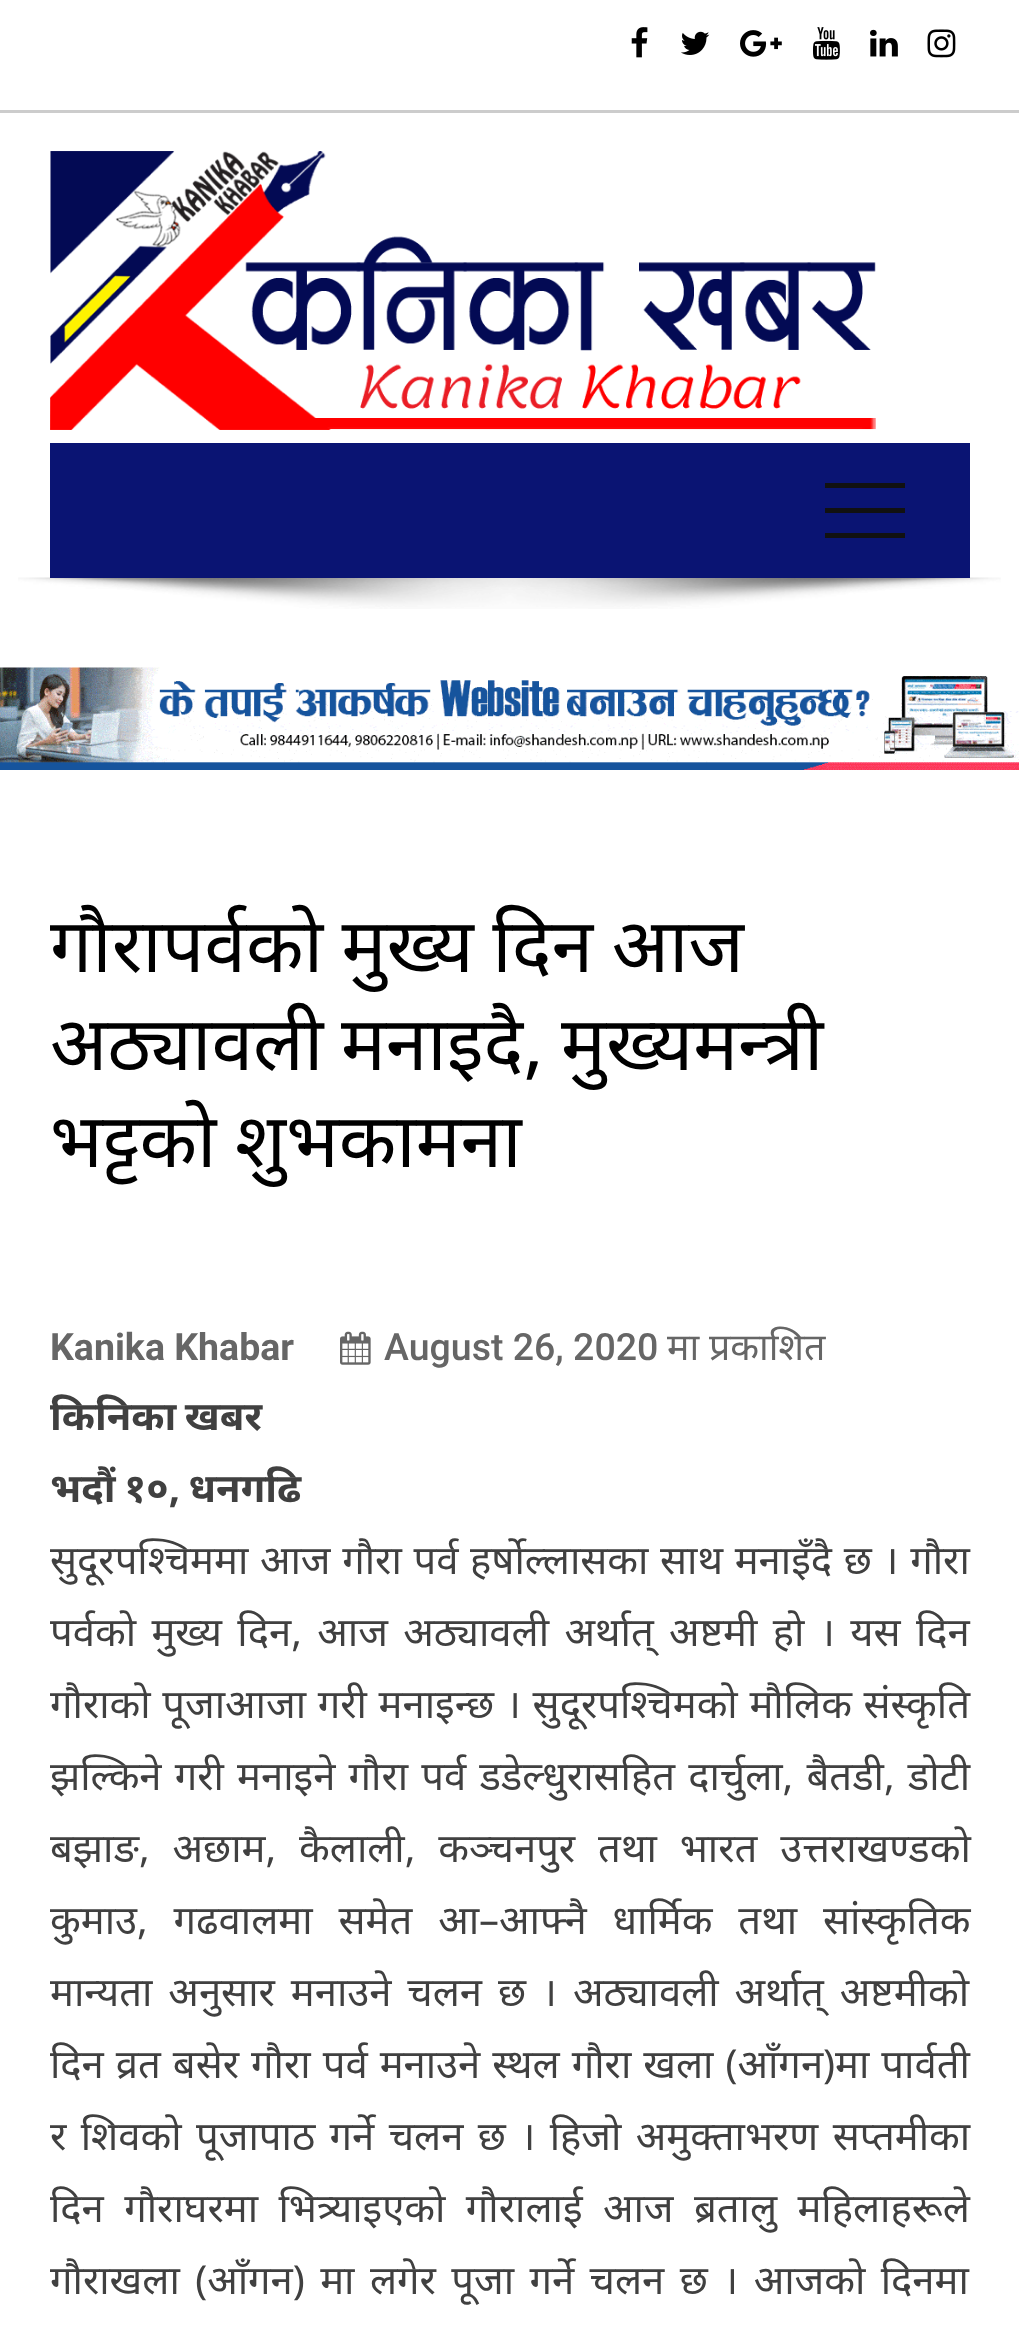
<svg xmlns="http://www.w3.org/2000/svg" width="1019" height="2333">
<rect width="100%" height="100%" fill="#fff"/>
<image x="631" y="27" width="17" height="31" href="media/1.png"/>
<image x="681" y="31" width="29" height="24" href="media/2.png"/>
<image x="740" y="30" width="42" height="27" href="media/3.png"/>
<image x="813" y="27" width="27" height="33" href="media/4.png"/>
<image x="870" y="29" width="28" height="28" href="media/5.png"/>
<image x="927" y="29" width="29" height="29" href="media/6.png"/>
<rect y="110" width="1019" height="3" fill="#ccc"/>
<image x="50" y="151" width="826" height="279" href="media/7.png"/>
<image x="18" y="577" width="983" height="32" href="media/8.png"/>
<rect x="50" y="443" width="920" height="135" fill="#0a1473"/>
<rect x="825" y="483" width="80" height="5" fill="#111"/>
<rect x="825" y="533" width="80" height="5" fill="#111"/>
<rect x="825" y="508" width="80" height="5" fill="#111"/>
<image x="0" y="667" width="1019" height="103" href="media/9.png"/>
<text x="50" y="972" word-spacing="-1" style="font-family:Noto Sans;font-size:75px;fill:#000">गौरापर्वको मुख्य दिन आज</text>
<text x="50" y="1070" word-spacing="-2" style="font-family:Noto Sans;font-size:75px;fill:#000">अठ्यावली मनाइदै, मुख्यमन्त्री</text>
<text x="50" y="1167" word-spacing="-1" style="font-family:Noto Sans;font-size:75px;fill:#000">भट्टको शुभकामना</text>
<text x="50" y="1360" style="font-family:Roboto;font-size:37.5px;font-weight:bold;fill:#666">Kanika Khabar</text>
<image x="340" y="1331" width="31" height="34" href="media/10.png"/>
<text x="384" y="1360" style="font-family:Roboto;font-size:37.5px;font-weight:500;fill:#666">August 26, 2020</text>
<text x="667" y="1360" style="font-family:Noto Sans;font-size:37.5px;fill:#666">मा प्रकाशित</text>
<text x="50" y="1430" word-spacing="-2" style="font-family:Noto Sans;font-size:40px;font-weight:bold;fill:#404040">किनिका खबर</text>
<text x="50" y="1502" word-spacing="-2" style="font-family:Noto Sans;font-size:40px;font-weight:bold;fill:#404040">भदौं १०, धनगढि</text>
<text x="50" y="1574" word-spacing="1.25" style="font-family:Noto Sans;font-size:40px;fill:#404040">सुदूरपश्चिममा आज गौरा पर्व हर्षोल्लासका साथ मनाइँदै छ । गौरा</text>
<text x="50" y="1646" word-spacing="5" style="font-family:Noto Sans;font-size:40px;fill:#404040">पर्वको मुख्य दिन, आज अठ्यावली अर्थात् अष्टमी हो । यस दिन</text>
<text x="50" y="1718" word-spacing="1.25" style="font-family:Noto Sans;font-size:40px;fill:#404040">गौराको पूजाआजा गरी मनाइन्छ । सुदूरपश्चिमको मौलिक संस्कृति</text>
<text x="50" y="1790" word-spacing="2.75" style="font-family:Noto Sans;font-size:40px;fill:#404040">झल्किने गरी मनाइने गौरा पर्व डडेल्धुरासहित दार्चुला, बैतडी, डोटी</text>
<text x="50" y="1862" word-spacing="12.5" style="font-family:Noto Sans;font-size:40px;fill:#404040">बझाङ, अछाम, कैलाली, कञ्चनपुर तथा भारत उत्तराखण्डको</text>
<text x="50" y="1934" word-spacing="15.5" style="font-family:Noto Sans;font-size:40px;fill:#404040">कुमाउ, गढवालमा समेत आ–आफ्नै धार्मिक तथा सांस्कृतिक</text>
<text x="50" y="2006" word-spacing="5.5" style="font-family:Noto Sans;font-size:40px;fill:#404040">मान्यता अनुसार मनाउने चलन छ । अठ्यावली अर्थात् अष्टमीको</text>
<text x="50" y="2078" word-spacing="1.6" style="font-family:Noto Sans;font-size:40px;fill:#404040">दिन व्रत बसेर गौरा पर्व मनाउने स्थल गौरा खला (आँगन)मा पार्वती</text>
<text x="50" y="2150" word-spacing="4" style="font-family:Noto Sans;font-size:40px;fill:#404040">र शिवको पूजापाठ गर्ने चलन छ । हिजो अमुक्ताभरण सप्तमीका</text>
<text x="50" y="2222" word-spacing="10" style="font-family:Noto Sans;font-size:40px;fill:#404040">दिन गौराघरमा भित्र्याइएको गौरालाई आज ब्रतालु महिलाहरूले</text>
<text x="50" y="2294" word-spacing="5" style="font-family:Noto Sans;font-size:40px;fill:#404040">गौराखला (आँगन) मा लगेर पूजा गर्ने चलन छ । आजको दिनमा</text>
</svg>
